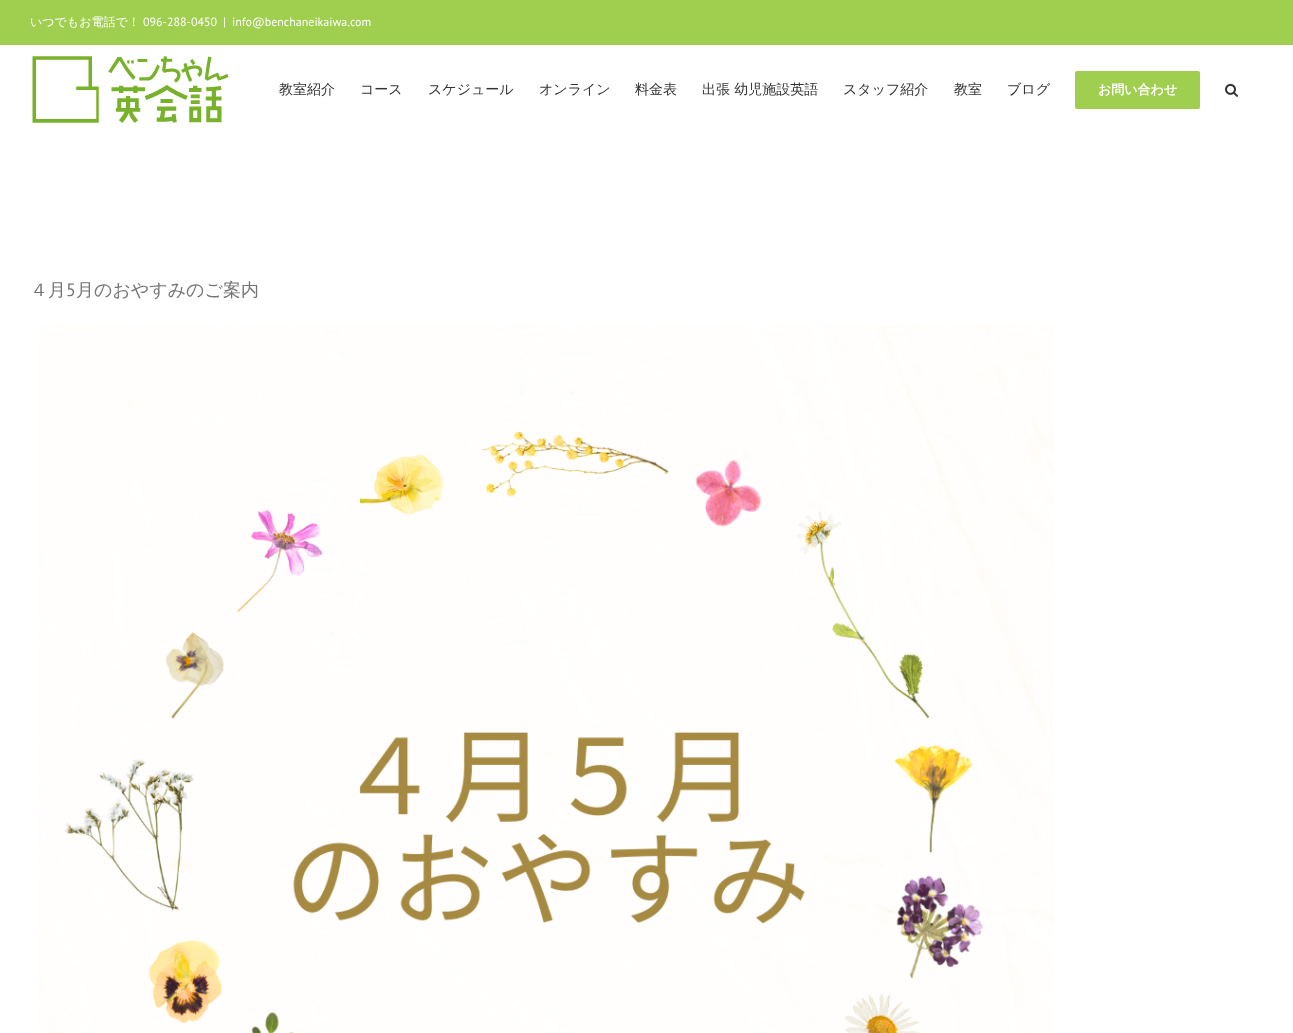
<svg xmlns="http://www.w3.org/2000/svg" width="1293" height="1033">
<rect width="100%" height="100%" fill="#fff"/>
<rect width="1293" height="45" fill="#a0ce4e"/>
<text x="30" y="26" style="font-family:WenQuanYi Zen Hei;font-size:12px;font-weight:500;fill:#fff">いつでもお電話で！</text>
<text x="143" y="26" style="font-family:PT Sans;font-size:12px;fill:#fff">096-288-0450</text>
<text x="223" y="26" style="font-family:PT Sans;font-size:12px;fill:#fff">|</text>
<text x="232" y="26" style="font-family:PT Sans;font-size:12px;fill:#fff">info@benchaneikaiwa.com</text>
<image x="32" y="56" width="197" height="67" href="media/1.png"/>
<text x="279" y="94" style="font-family:WenQuanYi Zen Hei;font-size:14px;font-weight:500;fill:#333">教室紹介</text>
<text x="360" y="94" style="font-family:WenQuanYi Zen Hei;font-size:14px;font-weight:500;fill:#333">コース</text>
<text x="428" y="94" style="font-family:WenQuanYi Zen Hei;font-size:14px;font-weight:500;fill:#333">スケジュール</text>
<text x="539" y="94" style="font-family:WenQuanYi Zen Hei;font-size:14px;font-weight:500;fill:#333">オンライン</text>
<text x="635" y="94" style="font-family:WenQuanYi Zen Hei;font-size:14px;font-weight:500;fill:#333">料金表</text>
<text x="702" y="94" style="font-family:WenQuanYi Zen Hei;font-size:14px;font-weight:500;fill:#333">出張 幼児施設英語</text>
<text x="843" y="94" style="font-family:WenQuanYi Zen Hei;font-size:14px;font-weight:500;fill:#333">スタッフ紹介</text>
<text x="954" y="94" style="font-family:WenQuanYi Zen Hei;font-size:14px;font-weight:500;fill:#333">教室</text>
<text x="1007" y="94" style="font-family:WenQuanYi Zen Hei;font-size:14px;font-weight:500;fill:#333">ブログ</text>
<rect x="1075" y="71" width="125" height="38" rx="2" fill="#a0ce4e"/>
<text x="1098" y="94" style="font-family:WenQuanYi Zen Hei;font-size:13px;font-weight:bold;fill:#fff">お問い合わせ</text>
<image x="1225" y="83" width="13" height="14" href="media/2.png"/>
<text x="30" y="296" style="font-family:WenQuanYi Zen Hei;font-size:18px;font-weight:500;fill:#747474">４月</text>
<text x="66" y="296" style="font-family:PT Sans;font-size:18px;fill:#747474">5</text>
<text x="76" y="296" style="font-family:WenQuanYi Zen Hei;font-size:18px;font-weight:500;fill:#747474">月のおやすみのご案内</text>
<image x="38" y="324" width="1016" height="709" href="media/3.png"/>
</svg>
